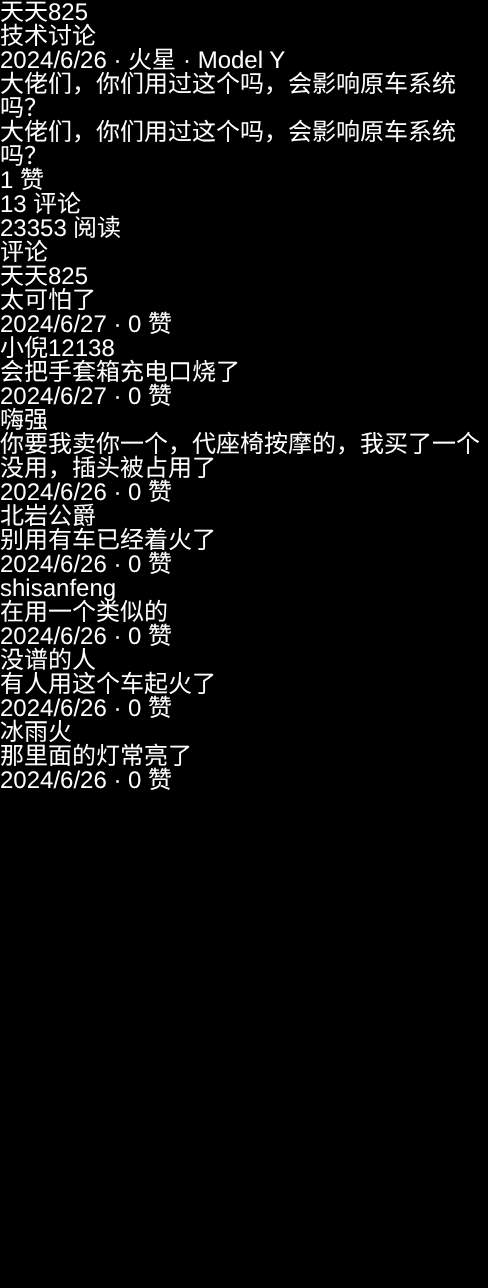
<svg xmlns="http://www.w3.org/2000/svg" width="488" height="1288">
<rect width="100%" height="100%" fill="#000"/>
<text x="0" y="20" style="font-family:Noto Sans CJK SC;font-size:24px;fill:#fff">天天</text>
<text x="48" y="20" style="font-family:Liberation Sans;font-size:24px;fill:#fff">825</text>
<text x="0" y="44" style="font-family:Noto Sans CJK SC;font-size:24px;fill:#fff">技术讨论</text>
<text x="0" y="68" style="font-family:Liberation Sans;font-size:24px;fill:#fff">2024/6/26 ·</text>
<text x="128" y="68" style="font-family:Noto Sans CJK SC;font-size:24px;fill:#fff">火星</text>
<text x="183" y="68" style="font-family:Liberation Sans;font-size:24px;fill:#fff">· Model Y</text>
<text x="0" y="92" style="font-family:Noto Sans CJK SC;font-size:24px;fill:#fff">大佬们，你们用过这个吗，会影响原车系统</text>
<text x="0" y="116" style="font-family:Noto Sans CJK SC;font-size:24px;fill:#fff">吗？</text>
<text x="0" y="140" style="font-family:Noto Sans CJK SC;font-size:24px;fill:#fff">大佬们，你们用过这个吗，会影响原车系统</text>
<text x="0" y="164" style="font-family:Noto Sans CJK SC;font-size:24px;fill:#fff">吗？</text>
<text x="0" y="188" style="font-family:Liberation Sans;font-size:24px;fill:#fff">1</text>
<text x="20" y="188" style="font-family:Noto Sans CJK SC;font-size:24px;fill:#fff">赞</text>
<text x="0" y="212" style="font-family:Liberation Sans;font-size:24px;fill:#fff">13</text>
<text x="33" y="212" style="font-family:Noto Sans CJK SC;font-size:24px;fill:#fff">评论</text>
<text x="0" y="236" style="font-family:Liberation Sans;font-size:24px;fill:#fff">23353</text>
<text x="73" y="236" style="font-family:Noto Sans CJK SC;font-size:24px;fill:#fff">阅读</text>
<text x="0" y="260" style="font-family:Noto Sans CJK SC;font-size:24px;fill:#fff">评论</text>
<text x="0" y="284" style="font-family:Noto Sans CJK SC;font-size:24px;fill:#fff">天天</text>
<text x="48" y="284" style="font-family:Liberation Sans;font-size:24px;fill:#fff">825</text>
<text x="0" y="308" style="font-family:Noto Sans CJK SC;font-size:24px;fill:#fff">太可怕了</text>
<text x="0" y="332" style="font-family:Liberation Sans;font-size:24px;fill:#fff">2024/6/27 · 0</text>
<text x="148" y="332" style="font-family:Noto Sans CJK SC;font-size:24px;fill:#fff">赞</text>
<text x="0" y="356" style="font-family:Noto Sans CJK SC;font-size:24px;fill:#fff">小倪</text>
<text x="48" y="356" style="font-family:Liberation Sans;font-size:24px;fill:#fff">12138</text>
<text x="0" y="380" style="font-family:Noto Sans CJK SC;font-size:24px;fill:#fff">会把手套箱充电口烧了</text>
<text x="0" y="404" style="font-family:Liberation Sans;font-size:24px;fill:#fff">2024/6/27 · 0</text>
<text x="148" y="404" style="font-family:Noto Sans CJK SC;font-size:24px;fill:#fff">赞</text>
<text x="0" y="428" style="font-family:Noto Sans CJK SC;font-size:24px;fill:#fff">嗨强</text>
<text x="0" y="452" style="font-family:Noto Sans CJK SC;font-size:24px;fill:#fff">你要我卖你一个，代座椅按摩的，我买了一个</text>
<text x="0" y="476" style="font-family:Noto Sans CJK SC;font-size:24px;fill:#fff">没用，插头被占用了</text>
<text x="0" y="500" style="font-family:Liberation Sans;font-size:24px;fill:#fff">2024/6/26 · 0</text>
<text x="148" y="500" style="font-family:Noto Sans CJK SC;font-size:24px;fill:#fff">赞</text>
<text x="0" y="524" style="font-family:Noto Sans CJK SC;font-size:24px;fill:#fff">北岩公爵</text>
<text x="0" y="548" style="font-family:Noto Sans CJK SC;font-size:24px;fill:#fff">别用有车已经着火了</text>
<text x="0" y="572" style="font-family:Liberation Sans;font-size:24px;fill:#fff">2024/6/26 · 0</text>
<text x="148" y="572" style="font-family:Noto Sans CJK SC;font-size:24px;fill:#fff">赞</text>
<text x="0" y="596" style="font-family:Liberation Sans;font-size:24px;fill:#fff">shisanfeng</text>
<text x="0" y="620" style="font-family:Noto Sans CJK SC;font-size:24px;fill:#fff">在用一个类似的</text>
<text x="0" y="644" style="font-family:Liberation Sans;font-size:24px;fill:#fff">2024/6/26 · 0</text>
<text x="148" y="644" style="font-family:Noto Sans CJK SC;font-size:24px;fill:#fff">赞</text>
<text x="0" y="668" style="font-family:Noto Sans CJK SC;font-size:24px;fill:#fff">没谱的人</text>
<text x="0" y="692" style="font-family:Noto Sans CJK SC;font-size:24px;fill:#fff">有人用这个车起火了</text>
<text x="0" y="716" style="font-family:Liberation Sans;font-size:24px;fill:#fff">2024/6/26 · 0</text>
<text x="148" y="716" style="font-family:Noto Sans CJK SC;font-size:24px;fill:#fff">赞</text>
<text x="0" y="740" style="font-family:Noto Sans CJK SC;font-size:24px;fill:#fff">冰雨火</text>
<text x="0" y="764" style="font-family:Noto Sans CJK SC;font-size:24px;fill:#fff">那里面的灯常亮了</text>
<text x="0" y="788" style="font-family:Liberation Sans;font-size:24px;fill:#fff">2024/6/26 · 0</text>
<text x="148" y="788" style="font-family:Noto Sans CJK SC;font-size:24px;fill:#fff">赞</text>
</svg>
